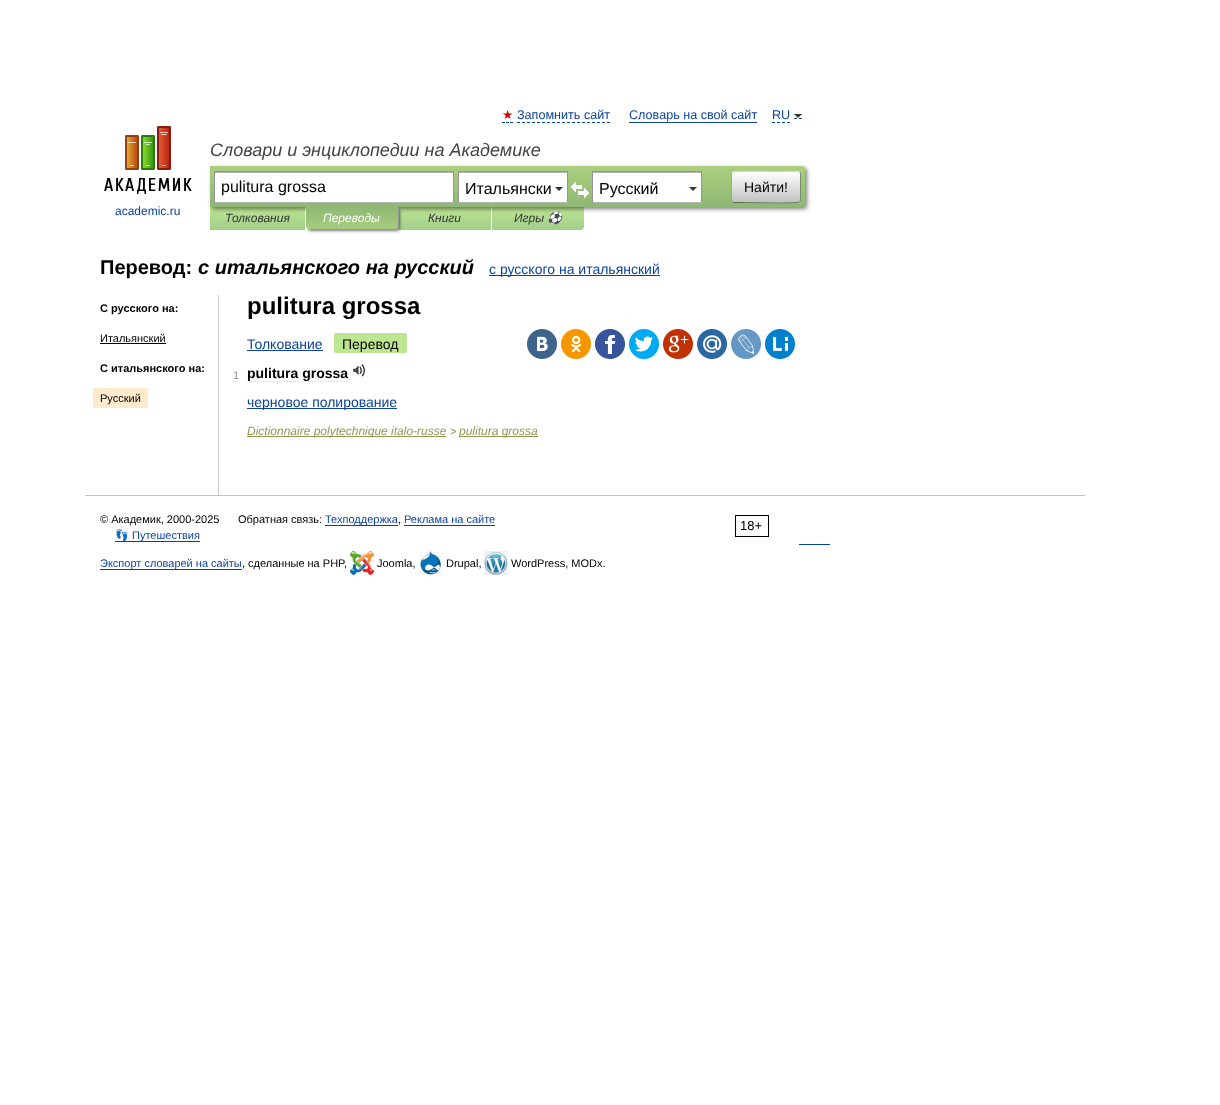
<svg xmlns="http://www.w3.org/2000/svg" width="1220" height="1105">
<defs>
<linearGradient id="g1" gradientUnits="userSpaceOnUse" x1="258" y1="207" x2="258" y2="230"><stop offset="0" stop-color="#bde693"/><stop offset="1" stop-color="#a0ce8a"/></linearGradient>
<linearGradient id="g2" gradientUnits="userSpaceOnUse" x1="445" y1="207" x2="445" y2="230"><stop offset="0" stop-color="#bde693"/><stop offset="1" stop-color="#a0ce8a"/></linearGradient>
<linearGradient id="g3" gradientUnits="userSpaceOnUse" x1="538" y1="207" x2="538" y2="230"><stop offset="0" stop-color="#bde693"/><stop offset="1" stop-color="#a0ce8a"/></linearGradient>
<linearGradient id="g4" gradientUnits="userSpaceOnUse" x1="508" y1="166" x2="508" y2="207"><stop offset="0" stop-color="#abcf7e"/><stop offset="1" stop-color="#8eb874"/></linearGradient>
<clipPath id="clip1"><rect x="731" y="171" width="70" height="32" rx="3"/></clipPath>
<linearGradient id="g5" gradientUnits="userSpaceOnUse" x1="766" y1="142" x2="766" y2="172"><stop offset="0" stop-color="#fff"/><stop offset="1" stop-color="#c1c1c1"/></linearGradient>
<linearGradient id="g6" gradientUnits="userSpaceOnUse" x1="766" y1="172" x2="766" y2="202"><stop offset="0" stop-color="#fff"/><stop offset="1" stop-color="#c1c1c1"/></linearGradient>
<linearGradient id="g7" gradientUnits="userSpaceOnUse" x1="766" y1="202" x2="766" y2="232"><stop offset="0" stop-color="#fff"/><stop offset="1" stop-color="#c1c1c1"/></linearGradient>
<linearGradient id="g8" gradientUnits="userSpaceOnUse" x1="352" y1="207" x2="352" y2="229"><stop offset="0" stop-color="#8fb875"/><stop offset="1" stop-color="#a7cc7d"/></linearGradient>
</defs>
<rect width="100%" height="100%" fill="#fff"/>
<text x="502" y="119" style="font-family:DejaVu Sans;font-size:12.6px;fill:#c00">★</text>
<path d="M502 122.5h3m1 0h3m1 0h3" fill="none" stroke="#04a"/>
<text x="517" y="119" style="font-family:Liberation Sans;font-size:12.6px;fill:#0d44a0">Запомнить сайт</text>
<path d="M517 122.5h93" fill="none" stroke="#04a" stroke-dasharray="3 2"/>
<text x="629" y="119" style="font-family:Liberation Sans;font-size:12.6px;fill:#0d44a0">Словарь на свой сайт</text>
<rect x="629" y="122" width="128" height="1" fill="#0d44a0"/>
<path d="M772 122.5h18" fill="none" stroke="#04a" stroke-dasharray="3 2"/>
<path d="M794 118.5h3m2 0h3" fill="none" stroke="#04a"/>
<text x="772" y="119" style="font-family:Liberation Sans;font-size:12.6px;fill:#0d44a0">RU</text>
<path d="M794 114h8l-4 4z" fill="#333"/>
<text x="210" y="156" style="font-family:Liberation Sans;font-size:18px;font-style:italic;fill:#454545">Словари и энциклопедии на Академике</text>
<rect x="210" y="207" width="95" height="23" fill="url(#g1)"/>
<rect x="399" y="207" width="92" height="23" fill="url(#g2)"/>
<path d="M492 207h92v20c0 1.5-1.5 3-3 3h-89z" fill="url(#g3)"/>
<rect x="212" y="168" width="595" height="41" rx="3" fill="#00000080" filter="blur(2px)"/>
<path d="M210 166h592c1.5 0 3 1.5 3 3v35c0 1.5-1.5 3-3 3h-592z" fill="url(#g4)"/>
<rect x="215" y="173" width="238" height="29" fill="#fff"/>
<rect x="215" y="172" width="238" height="1" fill="#b3b3b3"/>
<rect x="214" y="171" width="240" height="1" fill="#949494"/>
<rect x="453" y="171" width="1" height="32" fill="#949494"/>
<rect x="214" y="202" width="240" height="1" fill="#b4b4b4"/>
<rect x="214" y="171" width="1" height="32" fill="#949494"/>
<text x="221" y="192" style="font-family:Liberation Sans;font-size:16px;fill:#000">pulitura grossa</text>
<rect x="459" y="173" width="108" height="29" fill="#fff"/>
<rect x="459" y="172" width="108" height="1" fill="#b3b3b3"/>
<rect x="458" y="171" width="110" height="1" fill="#949494"/>
<rect x="567" y="171" width="1" height="32" fill="#949494"/>
<rect x="458" y="202" width="110" height="1" fill="#b4b4b4"/>
<rect x="458" y="171" width="1" height="32" fill="#949494"/>
<text x="465" y="194" style="font-family:Liberation Sans;font-size:16px;fill:#000">Итальянски</text>
<path d="M555 187h8l-4 4z" fill="#333"/>
<image x="571" y="182" width="18" height="16" href="media/1.png"/>
<rect x="593" y="173" width="108" height="29" fill="#fff"/>
<rect x="593" y="172" width="108" height="1" fill="#b3b3b3"/>
<rect x="592" y="171" width="110" height="1" fill="#949494"/>
<rect x="701" y="171" width="1" height="32" fill="#949494"/>
<rect x="592" y="202" width="110" height="1" fill="#b4b4b4"/>
<rect x="592" y="171" width="1" height="32" fill="#949494"/>
<text x="599" y="194" style="font-family:Liberation Sans;font-size:16px;fill:#000">Русский</text>
<path d="M689 187h8l-4 4z" fill="#333"/>
<g clip-path="url(#clip1)">
<rect x="731" y="171" width="70" height="1" fill="url(#g5)"/>
<rect x="731" y="172" width="70" height="30" fill="url(#g6)"/>
<rect x="731" y="202" width="70" height="1" fill="url(#g7)"/>
</g>
<path d="M732 172h.5c2-1.5 48.5-.5 55-.5h10.5l2 .5" fill="none" stroke="#d1e4bc"/>
<path d="M800 172c0 .5 .5 1.5 .5 2v26c0 .5-.5 1.5-.5 2" fill="none" stroke="#7a8e69"/>
<path d="M800 202h-.5c-2 1.5-48.5 .5-55 .5h-10.5l-2-.5" fill="none" stroke="#5d7250"/>
<path d="M732 202c0-.5-.5-1.5-.5-2v-26c0-.5 .5-1.5 .5-2" fill="none" stroke="#9aae89"/>
<text x="744" y="192" style="font-family:Liberation Sans;font-size:14px;fill:#000">Найти!</text>
<image x="104" y="126" width="88" height="68" href="media/2.png"/>
<text x="115" y="215" style="font-family:Liberation Sans;font-size:12px;fill:#0d44a0">academic.ru</text>
<text x="225" y="222" style="font-family:Liberation Sans;font-size:12px;font-style:italic;fill:#353535">Толкования</text>
<rect x="308" y="209" width="92" height="22" rx="3" fill="#00000080" filter="blur(1.5px)"/>
<path d="M306 207h92v19c0 1.5-1.5 3-3 3h-86c-1.5 0-3-1.5-3-3z" fill="url(#g8)"/>
<text x="323" y="222" style="font-family:Liberation Sans;font-size:12px;font-style:italic;fill:#fff">Переводы</text>
<text x="428" y="222" style="font-family:Liberation Sans;font-size:12px;font-style:italic;fill:#353535">Книги</text>
<text x="514" y="222" style="font-family:Liberation Sans;font-size:12px;font-style:italic;fill:#353535">Игры</text>
<text x="547" y="222" style="font-family:Noto Color Emoji;font-size:12px;font-style:italic;fill:#353535">⚽</text>
<text x="100" y="274" style="font-family:Liberation Sans;font-size:20px;font-weight:bold;fill:#000">Перевод:</text>
<text x="198" y="274" style="font-family:Liberation Sans;font-size:20px;font-weight:bold;font-style:italic;fill:#000">с итальянского на русский</text>
<rect x="489" y="275" width="171" height="1" fill="#0d44a0"/>
<text x="489" y="274" style="font-family:Liberation Sans;font-size:14px;fill:#0d44a0">с русского на итальянский</text>
<rect x="218" y="295" width="1" height="200" fill="#ccc"/>
<text x="100" y="312" style="font-family:Liberation Sans;font-size:11px;font-weight:bold;fill:#000">С русского на:</text>
<text x="100" y="342" style="font-family:Liberation Sans;font-size:11px;fill:#000">Итальянский</text>
<rect x="100" y="343" width="66" height="1" fill="#000"/>
<text x="100" y="372" style="font-family:Liberation Sans;font-size:11px;font-weight:bold;fill:#000">С итальянского на:</text>
<rect x="93" y="388" width="55" height="20" fill="#fcebcc"/>
<text x="100" y="402" style="font-family:Liberation Sans;font-size:11px;fill:#000">Русский</text>
<text x="247" y="314" style="font-family:Liberation Sans;font-size:24px;font-weight:bold;fill:#000">pulitura grossa</text>
<text x="247" y="349" style="font-family:Liberation Sans;font-size:14px;fill:#0d44a0">Толкование</text>
<rect x="247" y="350" width="76" height="1" fill="#0d44a0"/>
<rect x="334" y="333" width="73" height="20" rx="2" fill="#bde693"/>
<text x="342" y="349" style="font-family:Liberation Sans;font-size:14px;fill:#000">Перевод</text>
<image x="527" y="329" width="30" height="30" href="media/3.png"/>
<image x="561" y="329" width="30" height="30" href="media/4.png"/>
<image x="595" y="329" width="30" height="30" href="media/5.png"/>
<image x="629" y="329" width="30" height="30" href="media/6.png"/>
<image x="663" y="329" width="30" height="30" href="media/7.png"/>
<image x="697" y="329" width="30" height="30" href="media/8.png"/>
<image x="731" y="329" width="30" height="30" href="media/9.png"/>
<image x="765" y="329" width="30" height="30" href="media/10.png"/>
<text x="233" y="379" style="font-family:Liberation Sans;font-size:11px;fill:#898989">1</text>
<path d="M233 381.5h1m1 0h1m1 0h1" fill="none" stroke="#d9d9d9"/>
<text x="247" y="378" style="font-family:Liberation Sans;font-size:14px;font-weight:bold;fill:#000">pulitura grossa</text>
<path d="M247 381.5h51" fill="none" stroke="#d9d9d9" stroke-dasharray="1 1"/>
<path d="M302 381.5h46" fill="none" stroke="#d9d9d9" stroke-dasharray="1 1"/>
<image x="353" y="364" width="14" height="14" href="media/11.png"/>
<rect x="247" y="408" width="150" height="1" fill="#0d44a0"/>
<text x="247" y="407" style="font-family:Liberation Sans;font-size:14px;fill:#0d44a0">черновое полирование</text>
<rect x="247" y="436" width="199" height="1" fill="#939756"/>
<text x="247" y="435" style="font-family:Liberation Sans;font-size:12px;font-style:italic;fill:#939756">Dictionnaire polytechnique italo-russe</text>
<text x="450" y="435" style="font-family:Liberation Sans;font-size:11px;font-style:italic;fill:#939756">&gt;</text>
<rect x="459" y="436" width="79" height="1" fill="#939756"/>
<text x="459" y="435" style="font-family:Liberation Sans;font-size:12px;font-style:italic;fill:#939756">pulitura grossa</text>
<rect x="85" y="495" width="1000" height="1" fill="#c7c7c7"/>
<text x="100" y="523" style="font-family:Liberation Sans;font-size:11px;fill:#000">© Академик, 2000-2025</text>
<text x="238" y="523" style="font-family:Liberation Sans;font-size:11px;fill:#000">Обратная связь:</text>
<rect x="325" y="525" width="73" height="1" fill="#04a"/>
<text x="325" y="523" style="font-family:Liberation Sans;font-size:11px;fill:#0d44a0">Техподдержка</text>
<text x="398" y="523" style="font-family:Liberation Sans;font-size:11px;fill:#000">,</text>
<rect x="404" y="525" width="91" height="1" fill="#04a"/>
<text x="404" y="523" style="font-family:Liberation Sans;font-size:11px;fill:#0d44a0">Реклама на сайте</text>
<rect x="735.5" y="515.5" width="33" height="21" fill="none" stroke="#000"/>
<text x="740" y="530" style="font-family:Liberation Sans;font-size:13px;fill:#000">18+</text>
<rect x="115" y="541" width="85" height="1" fill="#04a"/>
<text x="115" y="539" style="font-family:Noto Color Emoji;font-size:11px;fill:#0d44a0">👣</text>
<text x="132" y="539" style="font-family:Liberation Sans;font-size:11px;fill:#0d44a0">Путешествия</text>
<rect x="799" y="544" width="31" height="1" fill="#04a"/>
<rect x="100" y="569" width="142" height="1" fill="#04a"/>
<text x="100" y="567" style="font-family:Liberation Sans;font-size:11px;fill:#0d44a0">Экспорт словарей на сайты</text>
<text x="242" y="567" style="font-family:Liberation Sans;font-size:11px;fill:#000">, сделанные на PHP,</text>
<image x="350" y="551" width="24" height="24" href="media/12.png"/>
<text x="377" y="567" style="font-family:Liberation Sans;font-size:11px;fill:#000">Joomla,</text>
<image x="419" y="551" width="24" height="24" href="media/13.png"/>
<text x="446" y="567" style="font-family:Liberation Sans;font-size:11px;fill:#000">Drupal,</text>
<image x="484" y="551" width="24" height="24" href="media/14.png"/>
<text x="511" y="567" style="font-family:Liberation Sans;font-size:11px;fill:#000">WordPress, MODx.</text>
</svg>
